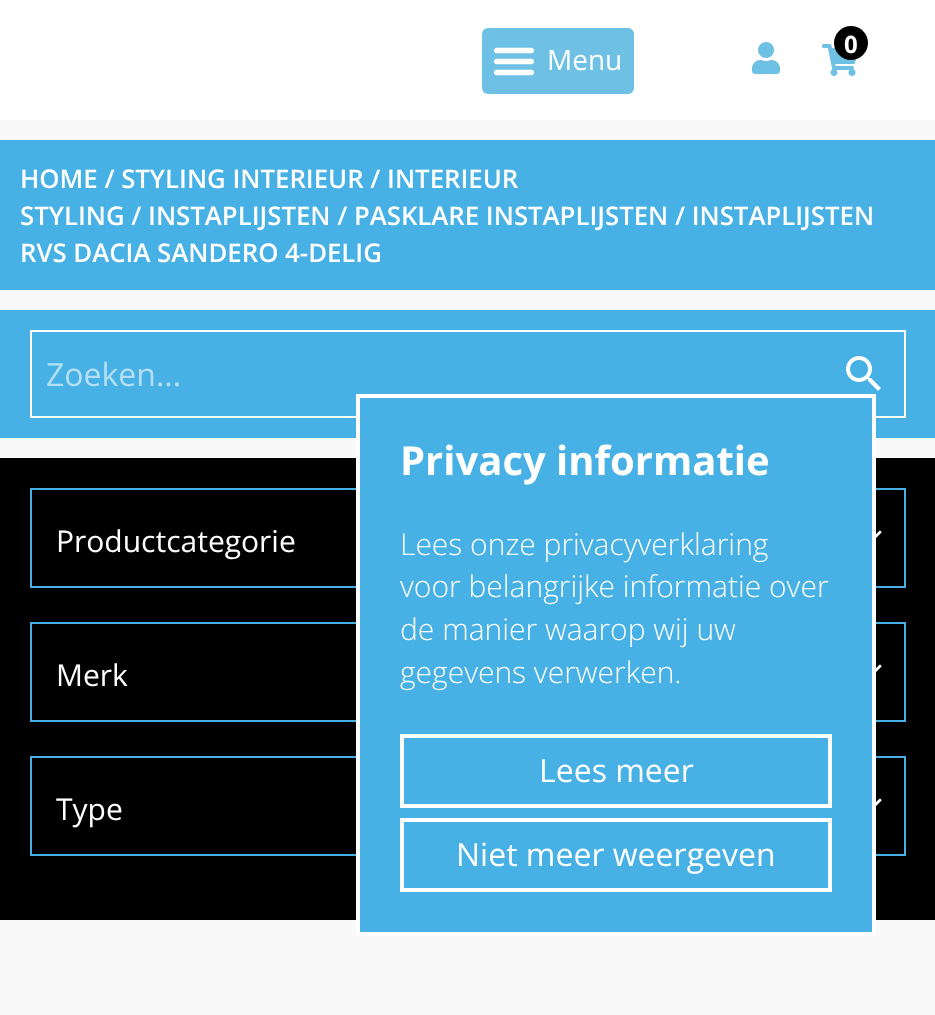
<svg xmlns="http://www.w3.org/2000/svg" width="935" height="1015">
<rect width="100%" height="100%" fill="#f9f9f9"/>
<rect width="935" height="120" fill="#fff"/>
<image x="752" y="42" width="28" height="32" href="media/1.png"/>
<image x="822" y="44" width="34" height="32" href="media/2.png"/>
<circle cx="851" cy="43" r="17" fill="#000"/>
<text x="844" y="53" style="font-family:Open Sans;font-size:24px;font-weight:bold;fill:#fff">0</text>
<rect x="482" y="28" width="152" height="66" rx="6" fill="#6ec1e4"/>
<image x="493" y="47" width="42" height="29" href="media/3.png"/>
<text x="547" y="70" style="font-family:Open Sans;font-size:28px;fill:#fff">Menu</text>
<rect y="140" width="935" height="150" fill="#47b0e4"/>
<text x="20" y="188" style="font-family:Open Sans;font-size:25.75px;font-weight:600;fill:#fff">HOME / STYLING INTERIEUR / INTERIEUR</text>
<text x="20" y="225" style="font-family:Open Sans;font-size:25.75px;font-weight:600;fill:#fff">STYLING / INSTAPLIJSTEN / PASKLARE INSTAPLIJSTEN / INSTAPLIJSTEN</text>
<text x="20" y="262" style="font-family:Open Sans;font-size:25.75px;font-weight:600;fill:#fff">RVS DACIA SANDERO 4-DELIG</text>
<rect y="310" width="935" height="128" fill="#47b0e4"/>
<rect x="31" y="331" width="874" height="86" fill="none" stroke="#fff" stroke-width="2"/>
<text x="46" y="386" style="font-family:Open Sans;font-size:32px;fill:#b5dff4">Zoeken...</text>
<image x="846" y="356" width="35" height="35" href="media/4.png"/>
<rect y="458" width="935" height="462" fill="#000"/>
<rect x="31" y="489" width="874" height="98" fill="none" stroke="#47b0e4" stroke-width="2"/>
<text x="56" y="552" style="font-family:Open Sans;font-size:30px;fill:#fff">Productcategorie</text>
<image x="876" y="530" width="6" height="8" href="media/5.png"/>
<rect x="31" y="623" width="874" height="98" fill="none" stroke="#47b0e4" stroke-width="2"/>
<text x="56" y="686" style="font-family:Open Sans;font-size:30px;fill:#fff">Merk</text>
<image x="876" y="664" width="6" height="8" href="media/5.png"/>
<rect x="31" y="757" width="874" height="98" fill="none" stroke="#47b0e4" stroke-width="2"/>
<text x="56" y="820" style="font-family:Open Sans;font-size:30px;fill:#fff">Type</text>
<image x="876" y="798" width="6" height="8" href="media/5.png"/>
<rect x="360" y="416" width="512" height="516" fill="#47b0e4"/>
<rect x="358" y="396" width="516" height="538" fill="none" stroke="#fff" stroke-width="4"/>
<text x="400" y="475" style="font-family:Open Sans;font-size:40px;font-weight:bold;fill:#fff">Privacy informatie</text>
<text x="400" y="555" style="font-family:Open Sans;font-size:30px;font-weight:300;fill:#fff">Lees onze privacyverklaring</text>
<text x="400" y="597" style="font-family:Open Sans;font-size:30px;font-weight:300;fill:#fff">voor belangrijke informatie over</text>
<text x="400" y="640" style="font-family:Open Sans;font-size:30px;font-weight:300;fill:#fff">de manier waarop wij uw</text>
<text x="400" y="683" style="font-family:Open Sans;font-size:30px;font-weight:300;fill:#fff">gegevens verwerken.</text>
<rect x="402" y="736" width="428" height="70" fill="none" stroke="#fff" stroke-width="4"/>
<text x="539" y="782" style="font-family:Open Sans;font-size:32px;fill:#fff">Lees meer</text>
<rect x="402" y="820" width="428" height="70" fill="none" stroke="#fff" stroke-width="4"/>
<text x="456" y="866" style="font-family:Open Sans;font-size:32px;fill:#fff">Niet meer weergeven</text>
</svg>
